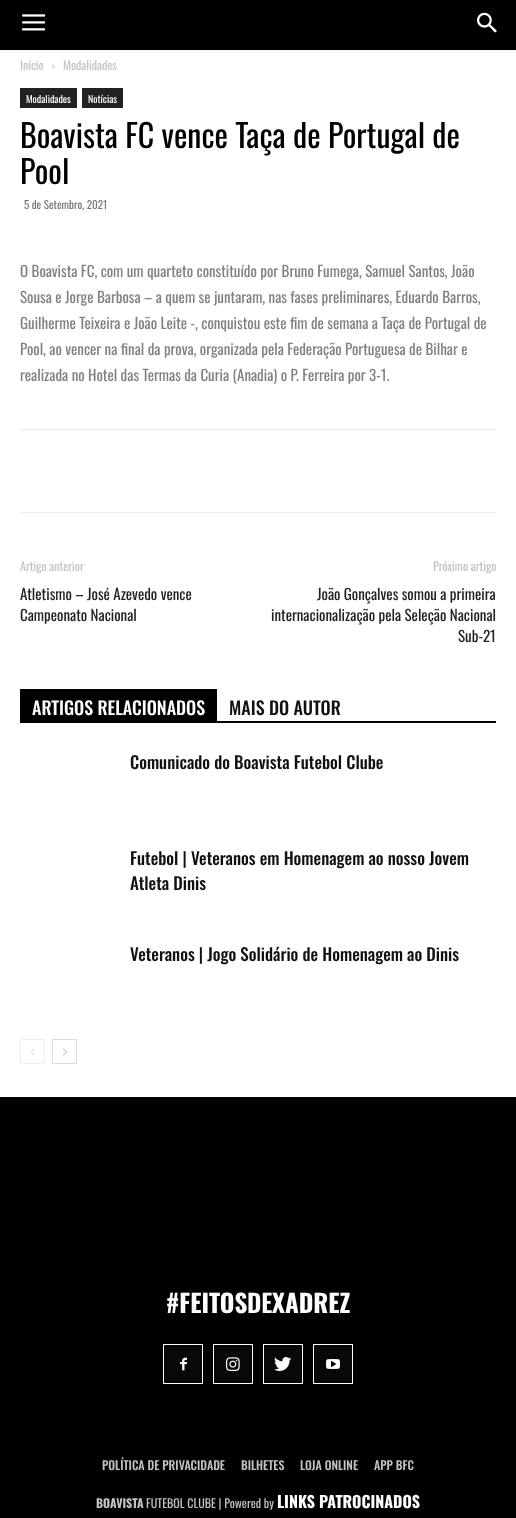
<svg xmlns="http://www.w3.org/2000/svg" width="516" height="1518">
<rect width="100%" height="100%" fill="#fff"/>
<rect width="516" height="50" fill="#000"/>
<image x="22" y="14" width="24" height="17" href="media/1.png"/>
<image x="477" y="12" width="20" height="21" href="media/2.png"/>
<rect y="50" width="516" height="3" fill="#fafafa"/>
<text x="20" y="70" style="font-family:Oswald;font-size:12px;fill:#c3c3c3">Início</text>
<image x="52" y="64" width="3" height="5" href="media/3.png"/>
<text x="63" y="70" style="font-family:Oswald;font-size:12px;fill:#c3c3c3">Modalidades</text>
<rect x="20" y="88" width="57" height="20" fill="#222"/>
<text x="26" y="103" style="font-family:Oswald;font-size:10px;fill:#fff">Modalidades</text>
<rect x="82" y="88" width="41" height="20" fill="#222"/>
<text x="88" y="103" style="font-family:Oswald;font-size:10px;fill:#fff">Notícias</text>
<text x="20" y="148" style="font-family:Oswald;font-size:32px;fill:#000">Boavista FC vence Taça de Portugal de</text>
<text x="20" y="184" style="font-family:Oswald;font-size:32px;fill:#000">Pool</text>
<text x="24" y="209" style="font-family:Oswald;font-size:11px;fill:#767676">5 de Setembro, 2021</text>
<text x="20" y="277" style="font-family:Oswald;font-size:15px;fill:#818183">O Boavista FC, com um quarteto constituído por Bruno Fumega, Samuel Santos, João</text>
<text x="20" y="303" style="font-family:Oswald;font-size:15px;fill:#818183">Sousa e Jorge Barbosa – a quem se juntaram, nas fases preliminares, Eduardo Barros,</text>
<text x="20" y="329" style="font-family:Oswald;font-size:15px;fill:#818183">Guilherme Teixeira e João Leite -, conquistou este fim de semana a Taça de Portugal de</text>
<text x="20" y="355" style="font-family:Oswald;font-size:15px;fill:#818183">Pool, ao vencer na final da prova, organizada pela Federação Portuguesa de Bilhar e</text>
<text x="20" y="381" style="font-family:Oswald;font-size:15px;fill:#818183">realizada no Hotel das Termas da Curia (Anadia) o P. Ferreira por 3-1.</text>
<rect x="20" y="429" width="476" height="1" fill="#ededed"/>
<rect x="20" y="512" width="476" height="1" fill="#ededed"/>
<text x="20" y="571" style="font-family:Oswald;font-size:12px;fill:#c3c3c3">Artigo anterior</text>
<text x="20" y="600" style="font-family:Oswald;font-size:15px;fill:#222">Atletismo – José Azevedo vence</text>
<text x="20" y="621" style="font-family:Oswald;font-size:15px;fill:#222">Campeonato Nacional</text>
<text x="433" y="571" style="font-family:Oswald;font-size:12px;fill:#c3c3c3">Próximo artigo</text>
<text x="317" y="600" style="font-family:Oswald;font-size:15px;fill:#222">João Gonçalves somou a primeira</text>
<text x="271" y="621" style="font-family:Oswald;font-size:15px;fill:#222">internacionalização pela Seleção Nacional</text>
<text x="458" y="642" style="font-family:Oswald;font-size:15px;fill:#222">Sub-21</text>
<rect x="20" y="721" width="476" height="2" fill="#000"/>
<rect x="20" y="689" width="197" height="32" fill="#000"/>
<text x="32" y="715" style="font-family:Oswald;font-size:18px;font-weight:500;fill:#fff">ARTIGOS RELACIONADOS</text>
<text x="229" y="715" style="font-family:Oswald;font-size:18px;font-weight:500;fill:#111">MAIS DO AUTOR</text>
<text x="130" y="769" style="font-family:Oswald;font-size:17px;font-weight:500;fill:#111">Comunicado do Boavista Futebol Clube</text>
<text x="130" y="865" style="font-family:Oswald;font-size:17px;font-weight:500;fill:#111">Futebol | Veteranos em Homenagem ao nosso Jovem</text>
<text x="130" y="890" style="font-family:Oswald;font-size:17px;font-weight:500;fill:#111">Atleta Dinis</text>
<text x="130" y="961" style="font-family:Oswald;font-size:17px;font-weight:500;fill:#111">Veteranos | Jogo Solidário de Homenagem ao Dinis</text>
<rect x="20.5" y="1039.5" width="24" height="24" fill="none" stroke="#eee"/>
<image x="30" y="1048" width="5" height="8" href="media/4.png"/>
<rect x="52.5" y="1039.5" width="24" height="24" fill="none" stroke="#dcdcdc"/>
<image x="63" y="1048" width="5" height="8" href="media/5.png"/>
<rect y="1097" width="516" height="421" fill="#000"/>
<text x="166" y="1313" style="font-family:Oswald;font-size:25px;font-weight:bold;fill:#fff">#FEITOS</text>
<text x="247" y="1313" style="font-family:Oswald;font-size:25px;font-weight:600;fill:#fff">DE</text>
<text x="272" y="1313" style="font-family:Oswald;font-size:25px;font-weight:bold;fill:#fff">XADREZ</text>
<rect x="164" y="1345" width="38" height="38" fill="#080808"/>
<image x="180" y="1357" width="7" height="14" href="media/6.png"/>
<rect x="163.5" y="1344.5" width="39" height="39" fill="none" stroke="#fff"/>
<rect x="214" y="1345" width="38" height="38" fill="#080808"/>
<image x="226" y="1357" width="14" height="14" href="media/7.png"/>
<rect x="213.5" y="1344.5" width="39" height="39" fill="none" stroke="#fff"/>
<rect x="264" y="1345" width="38" height="38" fill="#080808"/>
<image x="274" y="1357" width="18" height="14" href="media/8.png"/>
<rect x="263.5" y="1344.5" width="39" height="39" fill="none" stroke="#fff"/>
<rect x="314" y="1345" width="38" height="38" fill="#080808"/>
<image x="326" y="1359" width="14" height="10" href="media/9.png"/>
<rect x="313.5" y="1344.5" width="39" height="39" fill="none" stroke="#fff"/>
<text x="102" y="1470" style="font-family:Oswald;font-size:12px;font-weight:500;fill:#c3c3c3">POLÍTICA DE PRIVACIDADE</text>
<text x="241" y="1470" style="font-family:Oswald;font-size:12px;font-weight:500;fill:#c3c3c3">BILHETES</text>
<text x="300" y="1470" style="font-family:Oswald;font-size:12px;font-weight:500;fill:#c3c3c3">LOJA ONLINE</text>
<text x="374" y="1470" style="font-family:Oswald;font-size:12px;font-weight:500;fill:#c3c3c3">APP BFC</text>
<text x="96" y="1508" style="font-family:Oswald;font-size:12px;font-weight:bold;fill:#c3c3c3">BOAVISTA</text>
<text x="146" y="1508" style="font-family:Oswald;font-size:12px;fill:#c3c3c3">FUTEBOL CLUBE | Powered by</text>
<text x="277" y="1508" style="font-family:Oswald;font-size:16px;font-weight:bold;fill:#fff">LINKS PATROCINADOS</text>
</svg>
